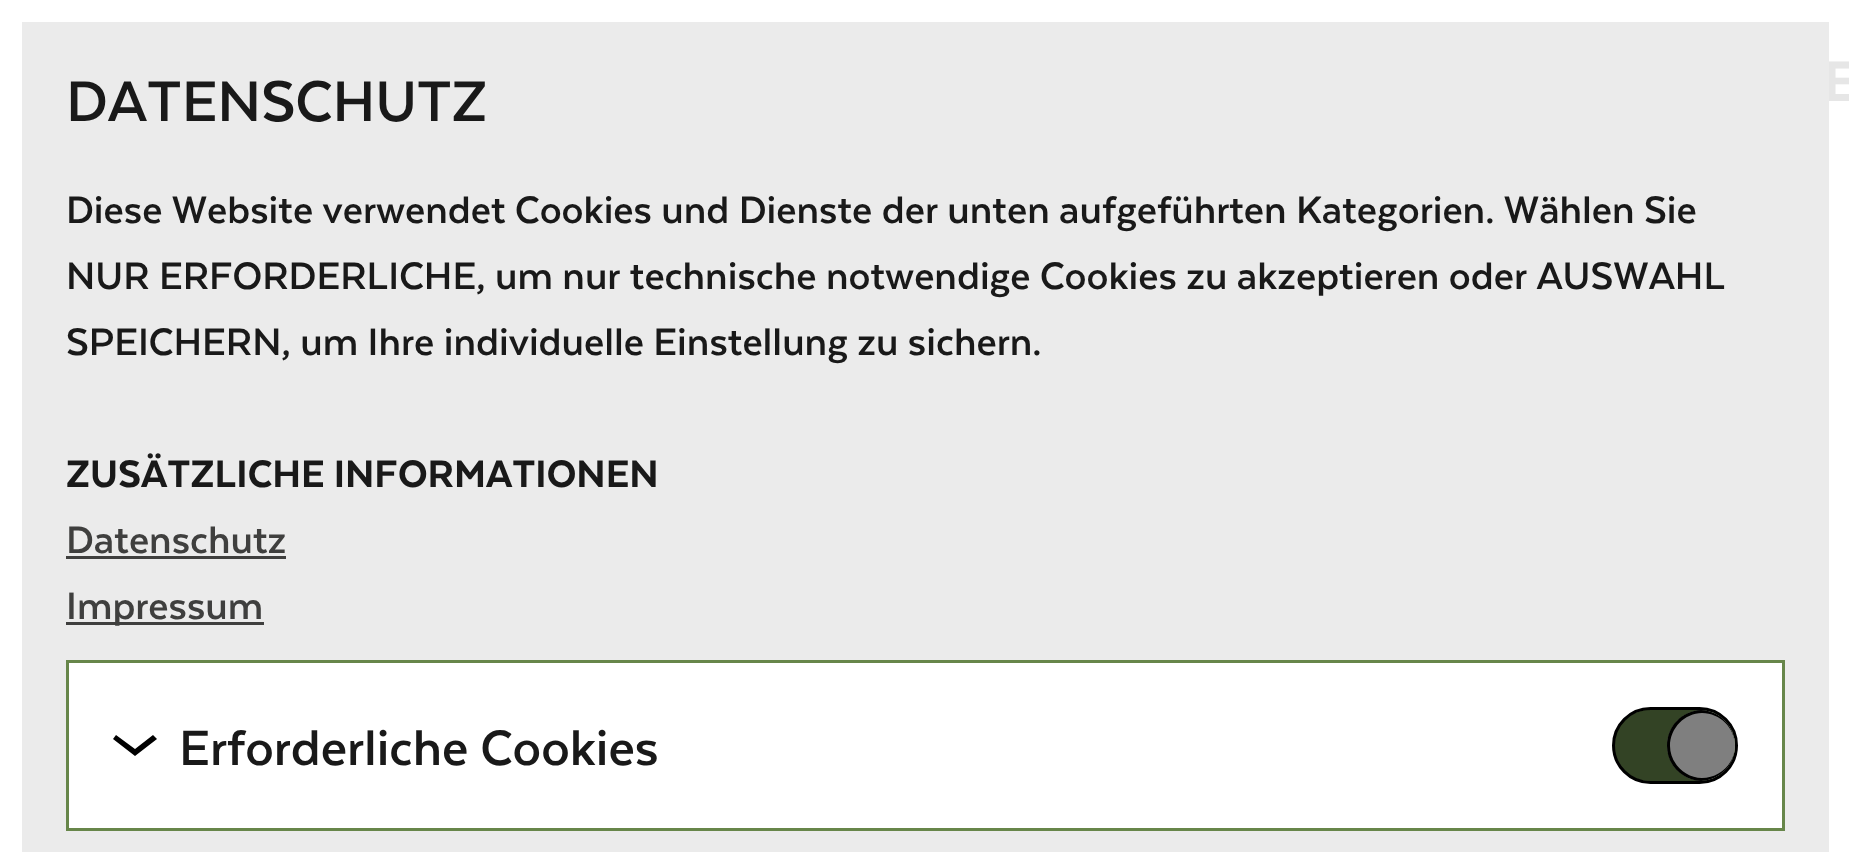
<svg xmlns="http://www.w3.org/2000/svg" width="1849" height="852">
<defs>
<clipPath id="clip1"><rect x="1614" y="710" width="121" height="71" rx="35.5"/></clipPath>
</defs>
<rect width="100%" height="100%" fill="#fff"/>
<text x="1823" y="101" style="font-family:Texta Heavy;font-size:66px;font-weight:bold;fill:#e6e6e6">E</text>
<rect x="22" y="22" width="1807" height="830" fill="#ebebeb"/>
<text x="66" y="121" style="font-family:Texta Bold;font-size:66px;fill:#191919">DATENSCHUTZ</text>
<text x="66" y="223" style="font-family:Texta Bold;font-size:44px;fill:#191919">Diese Website verwendet Cookies und Dienste der unten aufgeführten Kategorien. Wählen Sie</text>
<text x="66" y="289" style="font-family:Texta Bold;font-size:44px;fill:#191919">NUR ERFORDERLICHE, um nur technische notwendige Cookies zu akzeptieren oder AUSWAHL</text>
<text x="66" y="355" style="font-family:Texta Bold;font-size:44px;fill:#191919">SPEICHERN, um Ihre individuelle Einstellung zu sichern.</text>
<text x="66" y="487" style="font-family:Texta Heavy;font-size:44px;font-weight:bold;fill:#191919">ZUSÄTZLICHE INFORMATIONEN</text>
<text x="66" y="553" style="font-family:Texta Bold;font-size:44px;fill:#3f3f3e">Datenschutz</text>
<rect x="66" y="556" width="220" height="3" fill="#3f3f3e"/>
<rect x="66" y="622" width="198" height="3" fill="#3f3f3e"/>
<text x="66" y="619" style="font-family:Texta Bold;font-size:44px;fill:#3f3f3e">Impressum</text>
<rect x="67.5" y="661.5" width="1716" height="168" fill="#fff" stroke="#67864a" stroke-width="3"/>
<path d="M113 739l22 17l22-17l-4-4l-18 14l-19-14z" fill="#000"/>
<text x="179" y="765" style="font-family:Texta Bold;font-size:57.25px;fill:#191919">Erforderliche Cookies</text>
<rect x="1613.5" y="708.5" width="123" height="74" rx="37" fill="#67864a" stroke="#000" stroke-width="3"/>
<g clip-path="url(#clip1)">
<circle cx="1702.5" cy="745.5" r="35.5" fill="#fff"/>
</g>
<path d="M1701 710c-19 1-34 16-34 36c0 19 15 34 34 35c19-1 34-16 34-35c0-20-15-35-34-36zm1 3c18 0 33 15 33 33c0 17-15 32-33 32c-17 0-32-15-32-32c0-18 15-33 32-33z" fill="#000" fill-rule="evenodd"/>
<rect x="1614" y="710" width="121" height="71" rx="35.5" fill="#00000080"/>
</svg>
